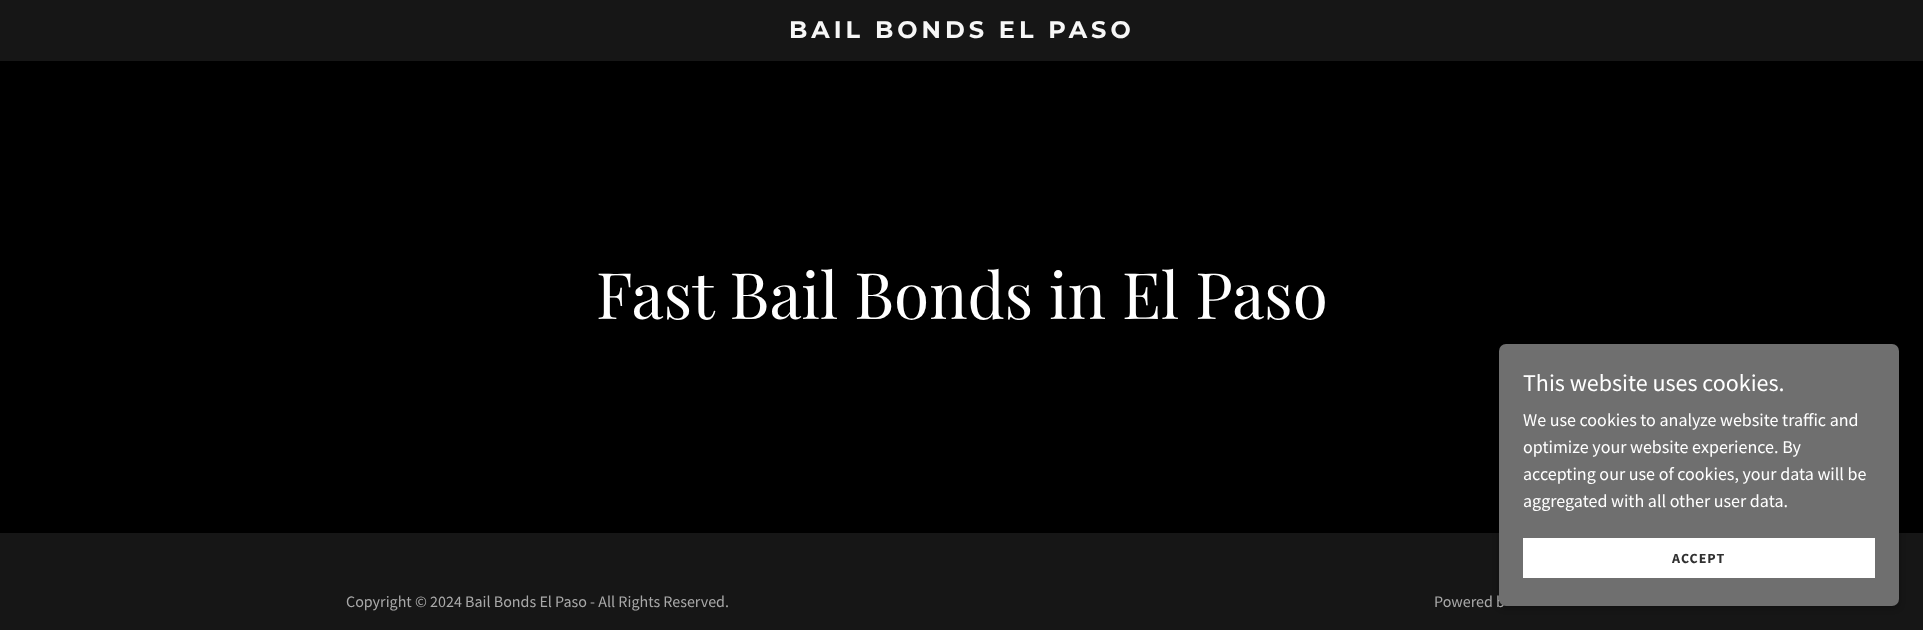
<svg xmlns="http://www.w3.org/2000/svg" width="1923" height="630">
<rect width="100%" height="100%" fill="#161616"/>
<text x="789" y="38" style="font-family:Montserrat;font-size:24px;font-weight:bold;letter-spacing:4px;fill:#f7f7f7">BAIL BONDS EL PASO</text>
<rect y="61" width="1923" height="472" fill="#000"/>
<text x="596" y="319" style="font-family:Playfair Display;font-size:64px;fill:#fff">Fast Bail Bonds in El Paso</text>
<rect x="1499" y="346" width="400" height="262" rx="7" fill="#0000004d" filter="blur(3px)"/>
<text x="1434" y="607" style="font-family:Source Sans Pro;font-size:16px;fill:#a9a9a9">Powered b</text>
<rect x="1499" y="344" width="400" height="262" rx="7" fill="#6f6f6f"/>
<text x="1523" y="391" style="font-family:Source Sans Pro;font-size:24px;fill:#fff">This website uses cookies.</text>
<text x="1523" y="426" style="font-family:Source Sans Pro;font-size:18px;fill:#fff">We use cookies to analyze website traffic and</text>
<text x="1523" y="453" style="font-family:Source Sans Pro;font-size:18px;fill:#fff">optimize your website experience. By</text>
<text x="1523" y="480" style="font-family:Source Sans Pro;font-size:18px;fill:#fff">accepting our use of cookies, your data will be</text>
<text x="1523" y="507" style="font-family:Source Sans Pro;font-size:18px;fill:#fff">aggregated with all other user data.</text>
<rect x="1523" y="538" width="352" height="40" fill="#fff"/>
<text x="1672" y="563" style="font-family:Source Sans Pro;font-size:14px;font-weight:bold;letter-spacing:1px;fill:#303030">ACCEPT</text>
<text x="346" y="607" style="font-family:Source Sans Pro;font-size:16px;fill:#a9a9a9">Copyright © 2024 Bail Bonds El Paso - All Rights Reserved.</text>
</svg>
